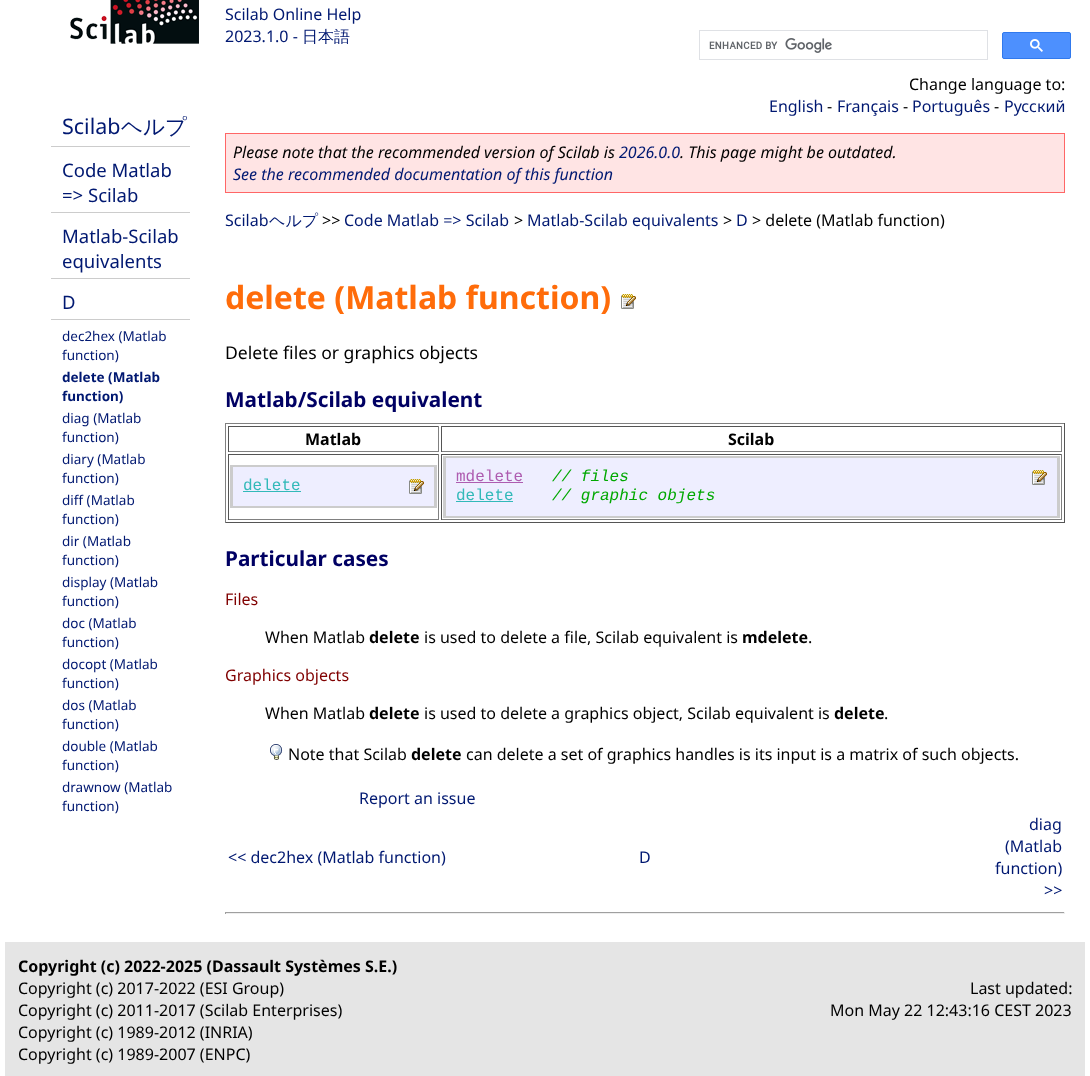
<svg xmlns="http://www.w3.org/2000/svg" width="1090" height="1076">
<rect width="100%" height="100%" fill="#fff"/>
<image x="70" y="0" width="129" height="44" href="media/1.png"/>
<text x="225" y="20" style="font-family:Noto Sans;font-size:16px;fill:#001871">Scilab Online Help</text>
<text x="225" y="42" style="font-family:Noto Sans;font-size:16px;fill:#001871">2023.1.0 -</text>
<text x="302" y="42" style="font-family:WenQuanYi Zen Hei;font-size:16px;font-weight:500;fill:#001871">日本語</text>
<text x="909" y="90" style="font-family:Noto Sans;font-size:16px;fill:#000">Change language to:</text>
<rect x="920" y="77" width="54" height="1" fill="#fff"/>
<rect x="699.5" y="30.5" width="288" height="29" fill="none" stroke="#dfe1e5"/>
<image x="709" y="38" width="123" height="15" href="media/2.png"/>
<rect x="1002.5" y="32.5" width="68" height="26" rx="1.5" fill="#4d90fe" stroke="#3079ed"/>
<image x="1030" y="39" width="13" height="13" href="media/3.png"/>
<rect x="51" y="146" width="139" height="1" fill="#ccc"/>
<text x="62" y="134" style="font-family:Noto Sans;font-size:21.5px;fill:#001871">Scilab</text>
<text x="121" y="134" style="font-family:WenQuanYi Zen Hei;font-size:21.5px;font-weight:500;fill:#001871">ヘルプ</text>
<rect x="51" y="212" width="139" height="1" fill="#ccc"/>
<text x="62" y="177" style="font-family:Noto Sans;font-size:18.5px;fill:#001871">Code Matlab</text>
<text x="62" y="202" style="font-family:Noto Sans;font-size:18.5px;fill:#001871">=&gt; Scilab</text>
<rect x="51" y="278" width="139" height="1" fill="#ccc"/>
<text x="62" y="243" style="font-family:Noto Sans;font-size:18.5px;fill:#001871">Matlab-Scilab</text>
<text x="62" y="268" style="font-family:Noto Sans;font-size:18.5px;fill:#001871">equivalents</text>
<rect x="51" y="319" width="139" height="1" fill="#ccc"/>
<text x="62" y="309" style="font-family:Noto Sans;font-size:18.5px;fill:#001871">D</text>
<text x="62" y="341" style="font-family:Noto Sans;font-size:13.5px;fill:#001871">dec2hex (Matlab</text>
<text x="62" y="360" style="font-family:Noto Sans;font-size:13.5px;fill:#001871">function)</text>
<text x="62" y="382" style="font-family:Noto Sans;font-size:13.5px;font-weight:bold;fill:#001871">delete (Matlab</text>
<text x="62" y="401" style="font-family:Noto Sans;font-size:13.5px;font-weight:bold;fill:#001871">function)</text>
<text x="62" y="423" style="font-family:Noto Sans;font-size:13.5px;fill:#001871">diag (Matlab</text>
<text x="62" y="442" style="font-family:Noto Sans;font-size:13.5px;fill:#001871">function)</text>
<text x="62" y="464" style="font-family:Noto Sans;font-size:13.5px;fill:#001871">diary (Matlab</text>
<text x="62" y="483" style="font-family:Noto Sans;font-size:13.5px;fill:#001871">function)</text>
<text x="62" y="505" style="font-family:Noto Sans;font-size:13.5px;fill:#001871">diff (Matlab</text>
<text x="62" y="524" style="font-family:Noto Sans;font-size:13.5px;fill:#001871">function)</text>
<text x="62" y="546" style="font-family:Noto Sans;font-size:13.5px;fill:#001871">dir (Matlab</text>
<text x="62" y="565" style="font-family:Noto Sans;font-size:13.5px;fill:#001871">function)</text>
<text x="62" y="587" style="font-family:Noto Sans;font-size:13.5px;fill:#001871">display (Matlab</text>
<text x="62" y="606" style="font-family:Noto Sans;font-size:13.5px;fill:#001871">function)</text>
<text x="62" y="628" style="font-family:Noto Sans;font-size:13.5px;fill:#001871">doc (Matlab</text>
<text x="62" y="647" style="font-family:Noto Sans;font-size:13.5px;fill:#001871">function)</text>
<text x="62" y="669" style="font-family:Noto Sans;font-size:13.5px;fill:#001871">docopt (Matlab</text>
<text x="62" y="688" style="font-family:Noto Sans;font-size:13.5px;fill:#001871">function)</text>
<text x="62" y="710" style="font-family:Noto Sans;font-size:13.5px;fill:#001871">dos (Matlab</text>
<text x="62" y="729" style="font-family:Noto Sans;font-size:13.5px;fill:#001871">function)</text>
<text x="62" y="751" style="font-family:Noto Sans;font-size:13.5px;fill:#001871">double (Matlab</text>
<text x="62" y="770" style="font-family:Noto Sans;font-size:13.5px;fill:#001871">function)</text>
<text x="62" y="792" style="font-family:Noto Sans;font-size:13.5px;fill:#001871">drawnow (Matlab</text>
<text x="62" y="811" style="font-family:Noto Sans;font-size:13.5px;fill:#001871">function)</text>
<text x="769" y="112" style="font-family:Noto Sans;font-size:16px;fill:#001871">English</text>
<text x="827" y="112" style="font-family:Noto Sans;font-size:16px;fill:#000">-</text>
<text x="837" y="112" style="font-family:Noto Sans;font-size:16px;fill:#001871">Français</text>
<text x="903" y="112" style="font-family:Noto Sans;font-size:16px;fill:#000">-</text>
<text x="912" y="112" style="font-family:Noto Sans;font-size:16px;fill:#001871">Português</text>
<text x="994" y="112" style="font-family:Noto Sans;font-size:16px;fill:#000">-</text>
<text x="1004" y="112" style="font-family:Noto Sans;font-size:16px;fill:#001871">Русский</text>
<rect x="225.5" y="133.5" width="839" height="59" fill="#ffe4e4" stroke="#f66"/>
<text x="233" y="158" style="font-family:Noto Sans;font-size:16px;font-style:italic;fill:#000">Please note that the recommended version of Scilab is</text>
<text x="619" y="158" style="font-family:Noto Sans;font-size:16px;font-style:italic;fill:#001871">2026.0.0</text>
<text x="680" y="158" style="font-family:Noto Sans;font-size:16px;font-style:italic;fill:#000">. This page might be outdated.</text>
<text x="233" y="180" style="font-family:Noto Sans;font-size:16px;font-style:italic;fill:#001871">See the recommended documentation of this function</text>
<text x="225" y="226" style="font-family:Noto Sans;font-size:16px;fill:#001871">Scilab</text>
<text x="269" y="226" style="font-family:WenQuanYi Zen Hei;font-size:16px;font-weight:500;fill:#001871">ヘルプ</text>
<text x="322" y="226" style="font-family:Noto Sans;font-size:16px;fill:#000">&gt;&gt;</text>
<text x="344" y="226" style="font-family:Noto Sans;font-size:16px;fill:#001871">Code Matlab =&gt; Scilab</text>
<text x="514" y="226" style="font-family:Noto Sans;font-size:16px;fill:#000">&gt;</text>
<text x="527" y="226" style="font-family:Noto Sans;font-size:16px;fill:#001871">Matlab-Scilab equivalents</text>
<text x="723" y="226" style="font-family:Noto Sans;font-size:16px;fill:#000">&gt;</text>
<text x="736" y="226" style="font-family:Noto Sans;font-size:16px;fill:#001871">D</text>
<text x="752" y="226" style="font-family:Noto Sans;font-size:16px;fill:#000">&gt; delete (Matlab function)</text>
<text x="225" y="309" style="font-family:Noto Sans;font-size:32px;font-weight:bold;fill:#ff6c0a">delete (Matlab function)</text>
<image x="621" y="294" width="15" height="15" href="media/4.png"/>
<text x="225" y="359" style="font-family:Noto Sans;font-size:17.6px;fill:#000">Delete files or graphics objects</text>
<text x="225" y="407" style="font-family:Noto Sans;font-size:20.75px;font-weight:bold;fill:#000063">Matlab/Scilab equivalent</text>
<rect x="225" y="423" width="840" height="1" fill="#808080"/>
<rect x="1064" y="423" width="1" height="100" fill="#555"/>
<rect x="225" y="522" width="840" height="1" fill="#555"/>
<rect x="225" y="423" width="1" height="100" fill="#808080"/>
<rect x="228" y="426" width="211" height="1" fill="#555"/>
<rect x="438" y="426" width="1" height="26" fill="#808080"/>
<rect x="228" y="451" width="211" height="1" fill="#808080"/>
<rect x="228" y="426" width="1" height="26" fill="#555"/>
<text x="305" y="445" style="font-family:Noto Sans;font-size:16px;font-weight:bold;fill:#000">Matlab</text>
<rect x="441" y="426" width="621" height="1" fill="#555"/>
<rect x="1061" y="426" width="1" height="26" fill="#808080"/>
<rect x="441" y="451" width="621" height="1" fill="#808080"/>
<rect x="441" y="426" width="1" height="26" fill="#555"/>
<text x="728" y="445" style="font-family:Noto Sans;font-size:16px;font-weight:bold;fill:#000">Scilab</text>
<rect x="228" y="454" width="211" height="1" fill="#555"/>
<rect x="438" y="454" width="1" height="66" fill="#808080"/>
<rect x="228" y="519" width="211" height="1" fill="#808080"/>
<rect x="228" y="454" width="1" height="66" fill="#555"/>
<rect x="233" y="467" width="201" height="39" fill="#eef"/>
<rect x="230" y="465" width="207" height="2" fill="#ccc"/>
<rect x="434" y="465" width="3" height="43" fill="#ccc"/>
<rect x="230" y="506" width="207" height="2" fill="#ccc"/>
<rect x="230" y="465" width="3" height="43" fill="#ccc"/>
<text x="243" y="490" style="font-family:Liberation Mono;font-size:16px;fill:#32b9b9">delete</text>
<rect x="243" y="491" width="58" height="1" fill="#32b9b9"/>
<image x="409" y="479" width="15" height="15" href="media/5.png"/>
<rect x="441" y="454" width="621" height="1" fill="#555"/>
<rect x="1061" y="454" width="1" height="66" fill="#808080"/>
<rect x="441" y="519" width="621" height="1" fill="#808080"/>
<rect x="441" y="454" width="1" height="66" fill="#555"/>
<rect x="446" y="458" width="611" height="58" fill="#eef"/>
<rect x="443" y="456" width="617" height="2" fill="#ccc"/>
<rect x="1057" y="456" width="3" height="62" fill="#ccc"/>
<rect x="443" y="516" width="617" height="2" fill="#ccc"/>
<rect x="443" y="456" width="3" height="62" fill="#ccc"/>
<text x="456" y="481" style="font-family:Liberation Mono;font-size:16px;fill:#ae5cb0">mdelete</text>
<rect x="456" y="482" width="67" height="1" fill="#ae5cb0"/>
<text x="552" y="481" style="font-family:Liberation Mono;font-size:16px;font-style:italic;fill:#01a801">// files</text>
<text x="456" y="500" style="font-family:Liberation Mono;font-size:16px;fill:#32b9b9">delete</text>
<rect x="456" y="501" width="57" height="1" fill="#32b9b9"/>
<text x="552" y="500" style="font-family:Liberation Mono;font-size:16px;font-style:italic;fill:#01a801">// graphic objets</text>
<image x="1032" y="470" width="15" height="15" href="media/5.png"/>
<text x="225" y="566" style="font-family:Noto Sans;font-size:20.75px;font-weight:bold;fill:#000063">Particular cases</text>
<text x="225" y="605" style="font-family:Noto Sans;font-size:16px;fill:#800000">Files</text>
<text x="265" y="643" style="font-family:Noto Sans;font-size:16px;fill:#000">When Matlab</text>
<text x="369" y="643" style="font-family:Noto Sans;font-size:16px;font-weight:bold;fill:#000">delete</text>
<text x="424" y="643" style="font-family:Noto Sans;font-size:16px;fill:#000">is used to delete a file, Scilab equivalent is</text>
<text x="742" y="643" style="font-family:Noto Sans;font-size:16px;font-weight:bold;fill:#000">mdelete</text>
<text x="808" y="643" style="font-family:Noto Sans;font-size:16px;fill:#000">.</text>
<text x="225" y="681" style="font-family:Noto Sans;font-size:16px;fill:#800000">Graphics objects</text>
<text x="265" y="719" style="font-family:Noto Sans;font-size:16px;fill:#000">When Matlab</text>
<text x="369" y="719" style="font-family:Noto Sans;font-size:16px;font-weight:bold;fill:#000">delete</text>
<text x="424" y="719" style="font-family:Noto Sans;font-size:16px;fill:#000">is used to delete a graphics object, Scilab equivalent is</text>
<text x="834" y="719" style="font-family:Noto Sans;font-size:16px;font-weight:bold;fill:#000">delete</text>
<text x="884" y="719" style="font-family:Noto Sans;font-size:16px;fill:#000">.</text>
<image x="270" y="744" width="13" height="16" href="media/6.png"/>
<text x="288" y="760" style="font-family:Noto Sans;font-size:16px;fill:#000">Note that Scilab</text>
<text x="411" y="760" style="font-family:Noto Sans;font-size:16px;font-weight:bold;fill:#000">delete</text>
<text x="466" y="760" style="font-family:Noto Sans;font-size:16px;fill:#000">can delete a set of graphics handles is its input is a matrix of such objects.</text>
<text x="359" y="804" style="font-family:Noto Sans;font-size:16px;fill:#001871">Report an issue</text>
<text x="228" y="863" style="font-family:Noto Sans;font-size:16px;fill:#001871">&lt;&lt; dec2hex (Matlab function)</text>
<text x="639" y="863" style="font-family:Noto Sans;font-size:16px;fill:#001871">D</text>
<text x="1029" y="830" style="font-family:Noto Sans;font-size:16px;fill:#001871">diag</text>
<text x="1005" y="852" style="font-family:Noto Sans;font-size:16px;fill:#001871">(Matlab</text>
<text x="995" y="874" style="font-family:Noto Sans;font-size:16px;fill:#001871">function)</text>
<text x="1044" y="896" style="font-family:Noto Sans;font-size:16px;fill:#001871">&gt;&gt;</text>
<rect x="225" y="912" width="840" height="1" fill="#9f9f9f"/>
<rect x="1064" y="912" width="1" height="2" fill="#eee"/>
<rect x="225" y="913" width="840" height="1" fill="#eee"/>
<rect x="225" y="912" width="1" height="2" fill="#9f9f9f"/>
<rect x="5" y="942" width="1080" height="134" fill="#e5e5e5"/>
<text x="18" y="972" style="font-family:Noto Sans;font-size:16px;font-weight:bold;fill:#000">Copyright (c) 2022-2025 (Dassault Systèmes S.E.)</text>
<text x="18" y="994" style="font-family:Noto Sans;font-size:16px;fill:#000">Copyright (c) 2017-2022 (ESI Group)</text>
<text x="18" y="1016" style="font-family:Noto Sans;font-size:16px;fill:#000">Copyright (c) 2011-2017 (Scilab Enterprises)</text>
<text x="18" y="1038" style="font-family:Noto Sans;font-size:16px;fill:#000">Copyright (c) 1989-2012 (INRIA)</text>
<text x="18" y="1060" style="font-family:Noto Sans;font-size:16px;fill:#000">Copyright (c) 1989-2007 (ENPC)</text>
<text x="970" y="994" style="font-family:Noto Sans;font-size:16px;fill:#000">Last updated:</text>
<text x="830" y="1016" style="font-family:Noto Sans;font-size:16px;fill:#000">Mon May 22 12:43:16 CEST 2023</text>
</svg>
